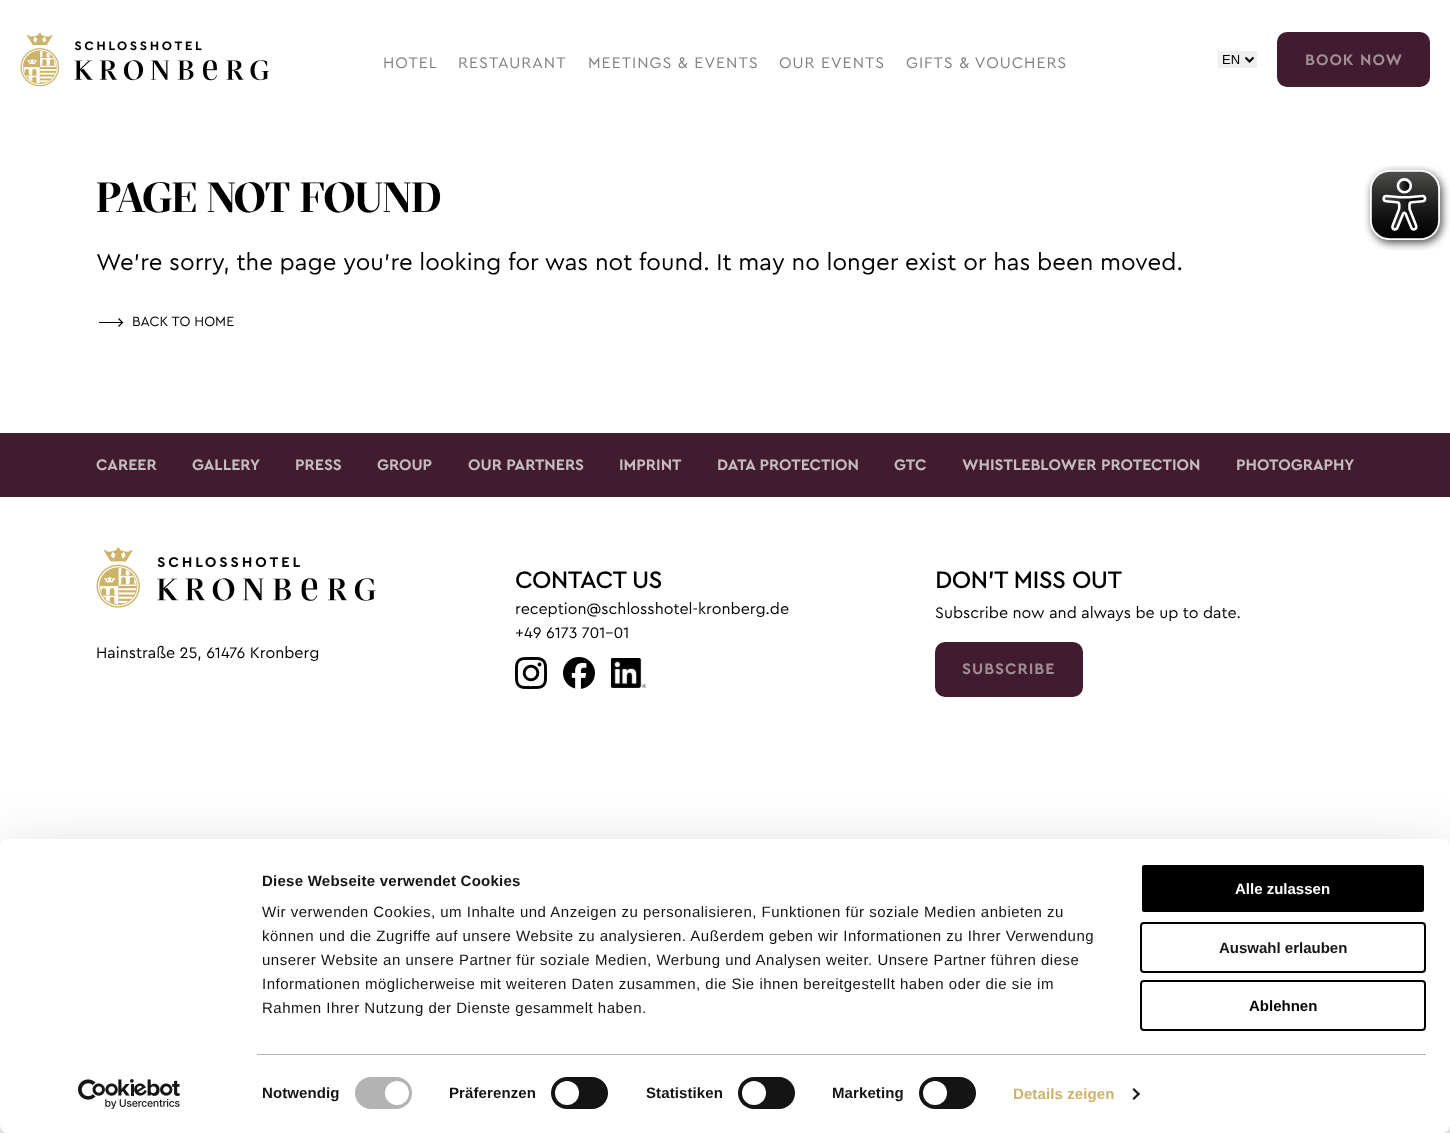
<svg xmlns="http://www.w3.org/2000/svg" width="1450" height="1133">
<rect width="100%" height="100%" fill="#fff"/>
<image x="20" y="32" width="249" height="55" href="media/1.png"/>
<text x="383" y="68" style="font-family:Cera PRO;font-size:16px;letter-spacing:1px;fill:#808080">HOTEL</text>
<text x="458" y="68" style="font-family:Cera PRO;font-size:16px;letter-spacing:1px;fill:#808080">RESTAURANT</text>
<text x="588" y="68" style="font-family:Cera PRO;font-size:16px;letter-spacing:1px;fill:#808080">MEETINGS &amp; EVENTS</text>
<text x="779" y="68" style="font-family:Cera PRO;font-size:16px;letter-spacing:1px;fill:#808080">OUR EVENTS</text>
<text x="906" y="68" style="font-family:Cera PRO;font-size:16px;letter-spacing:1px;fill:#808080">GIFTS &amp; VOUCHERS</text>
<rect x="1218" y="51" width="39" height="17" fill="#efefef"/>
<path d="M1245.5 57.5l4 4l4-4" fill="none" stroke="#000" stroke-width="2"/>
<text x="1222" y="64" style="font-family:Liberation Sans;font-size:13px;fill:#000">EN</text>
<rect x="1277" y="32" width="153" height="55" rx="10" fill="#411b2e"/>
<text x="1305" y="65" style="font-family:'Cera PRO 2';font-size:16px;font-weight:bold;letter-spacing:1px;fill:#a08d97">BOOK NOW</text>
<text x="96" y="212" style="font-family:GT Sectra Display;font-size:42px;font-weight:bold;fill:#000">PAGE NOT FOUND</text>
<text x="96" y="270" style="font-family:Cera PRO;font-size:24px;fill:#000">We're sorry, the page you're looking for was not found. It may no longer exist or has been moved.</text>
<rect x="99" y="322" width="23" height="1" fill="#000"/>
<path d="M118.5 318.5l4 4l-4 4" fill="none" stroke="#000" stroke-width="1.2"/>
<text x="132" y="326" style="font-family:Cera PRO;font-size:14px;fill:#000">BACK TO HOME</text>
<image x="1364" y="165" width="86" height="86" href="media/2.png"/>
<rect y="433" width="1450" height="64" fill="#411b2e"/>
<text x="96" y="470" style="font-family:'Cera PRO 2';font-size:16px;font-weight:bold;fill:#c6bbc0">CAREER</text>
<text x="192" y="470" style="font-family:'Cera PRO 2';font-size:16px;font-weight:bold;fill:#c6bbc0">GALLERY</text>
<text x="295" y="470" style="font-family:'Cera PRO 2';font-size:16px;font-weight:bold;fill:#c6bbc0">PRESS</text>
<text x="377" y="470" style="font-family:'Cera PRO 2';font-size:16px;font-weight:bold;fill:#c6bbc0">GROUP</text>
<text x="468" y="470" style="font-family:'Cera PRO 2';font-size:16px;font-weight:bold;fill:#c6bbc0">OUR PARTNERS</text>
<text x="619" y="470" style="font-family:'Cera PRO 2';font-size:16px;font-weight:bold;fill:#c6bbc0">IMPRINT</text>
<text x="717" y="470" style="font-family:'Cera PRO 2';font-size:16px;font-weight:bold;fill:#c6bbc0">DATA PROTECTION</text>
<text x="894" y="470" style="font-family:'Cera PRO 2';font-size:16px;font-weight:bold;fill:#c6bbc0">GTC</text>
<text x="962" y="470" style="font-family:'Cera PRO 2';font-size:16px;font-weight:bold;fill:#c6bbc0">WHISTLEBLOWER PROTECTION</text>
<text x="1236" y="470" style="font-family:'Cera PRO 2';font-size:16px;font-weight:bold;fill:#c6bbc0">PHOTOGRAPHY</text>
<image x="96" y="547" width="280" height="61" href="media/3.png"/>
<text x="96" y="658" style="font-family:Cera PRO;font-size:16px;fill:#000">Hainstraße 25, 61476 Kronberg</text>
<text x="515" y="588" style="font-family:Cera PRO;font-size:24px;font-weight:bold;fill:#000">CONTACT US</text>
<text x="515" y="614" style="font-family:Cera PRO;font-size:16px;fill:#000">reception@schlosshotel-kronberg.de</text>
<text x="515" y="638" style="font-family:Cera PRO;font-size:16px;fill:#000">+49 6173 701-01</text>
<image x="515" y="657" width="32" height="32" href="media/4.png"/>
<image x="563" y="657" width="32" height="32" href="media/5.png"/>
<image x="611" y="658" width="35" height="30" href="media/6.png"/>
<text x="935" y="588" style="font-family:Cera PRO;font-size:24px;font-weight:bold;fill:#000">DON'T MISS OUT</text>
<text x="935" y="618" style="font-family:Cera PRO;font-size:16px;fill:#000">Subscribe now and always be up to date.</text>
<rect x="935" y="642" width="148" height="55" rx="10" fill="#411b2e"/>
<text x="962" y="674" style="font-family:'Cera PRO 2';font-size:16px;font-weight:bold;letter-spacing:1px;fill:#a08d97">SUBSCRIBE</text>
<rect y="869" width="1450" height="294" rx="8" fill="#0000004d" filter="blur(35px)"/>
<rect y="839" width="1450" height="294" rx="8" fill="#fff"/>
<text x="262" y="886" style="font-family:Liberation Sans;font-size:15px;font-weight:bold;letter-spacing:0.25px;fill:#141414">Diese Webseite verwendet Cookies</text>
<text x="262" y="917" style="font-family:Liberation Sans;font-size:15px;letter-spacing:0.5px;fill:#141414">Wir verwenden Cookies, um Inhalte und Anzeigen zu personalisieren, Funktionen für soziale Medien anbieten zu</text>
<text x="262" y="941" style="font-family:Liberation Sans;font-size:15px;letter-spacing:0.5px;fill:#141414">können und die Zugriffe auf unsere Website zu analysieren. Außerdem geben wir Informationen zu Ihrer Verwendung</text>
<text x="262" y="965" style="font-family:Liberation Sans;font-size:15px;letter-spacing:0.5px;fill:#141414">unserer Website an unsere Partner für soziale Medien, Werbung und Analysen weiter. Unsere Partner führen diese</text>
<text x="262" y="989" style="font-family:Liberation Sans;font-size:15px;letter-spacing:0.5px;fill:#141414">Informationen möglicherweise mit weiteren Daten zusammen, die Sie ihnen bereitgestellt haben oder die sie im</text>
<text x="262" y="1013" style="font-family:Liberation Sans;font-size:15px;letter-spacing:0.5px;fill:#141414">Rahmen Ihrer Nutzung der Dienste gesammelt haben.</text>
<rect x="257" y="1054" width="1169" height="1" fill="#b3b3b3"/>
<text x="262" y="1098" style="font-family:Liberation Sans;font-size:15px;font-weight:bold;letter-spacing:0.1px;fill:#141414">Notwendig</text>
<rect x="355" y="1077" width="57" height="32" rx="16" fill="#b3b3b3"/>
<circle cx="397" cy="1093" r="12" fill="#fff"/>
<text x="449" y="1098" style="font-family:Liberation Sans;font-size:15px;font-weight:bold;letter-spacing:0.1px;fill:#141414">Präferenzen</text>
<rect x="551" y="1077" width="57" height="32" rx="16" fill="#141414"/>
<circle cx="567" cy="1093" r="12" fill="#fff"/>
<text x="646" y="1098" style="font-family:Liberation Sans;font-size:15px;font-weight:bold;letter-spacing:0.1px;fill:#141414">Statistiken</text>
<rect x="738" y="1077" width="57" height="32" rx="16" fill="#141414"/>
<circle cx="754" cy="1093" r="12" fill="#fff"/>
<text x="832" y="1098" style="font-family:Liberation Sans;font-size:15px;font-weight:bold;letter-spacing:0.1px;fill:#141414">Marketing</text>
<rect x="919" y="1077" width="57" height="32" rx="16" fill="#141414"/>
<circle cx="935" cy="1093" r="12" fill="#fff"/>
<text x="1013" y="1099" style="font-family:Liberation Sans;font-size:15px;font-weight:bold;letter-spacing:0.1px;fill:#cdb36a">Details zeigen</text>
<path d="M1134 1088l6 6l-1.5 1.5l-6-6z" fill="#141414"/>
<path d="M1138.5 1092.5l1.5 1.5l-6 6l-1.5-1.5z" fill="#141414"/>
<rect x="1141" y="864" width="284" height="49" rx="3" fill="#000" stroke="#fff" stroke-width="2"/>
<text x="1235" y="894" style="font-family:Liberation Sans;font-size:15px;font-weight:bold;fill:#fff">Alle zulassen</text>
<rect x="1141" y="923" width="284" height="49" rx="3" fill="none" stroke="#000" stroke-width="2"/>
<text x="1219" y="953" style="font-family:Liberation Sans;font-size:15px;font-weight:bold;fill:#141414">Auswahl erlauben</text>
<rect x="1141" y="981" width="284" height="49" rx="3" fill="none" stroke="#000" stroke-width="2"/>
<text x="1249" y="1011" style="font-family:Liberation Sans;font-size:15px;font-weight:bold;fill:#000">Ablehnen</text>
<image x="78" y="1079" width="102" height="30" href="media/7.png"/>
</svg>
